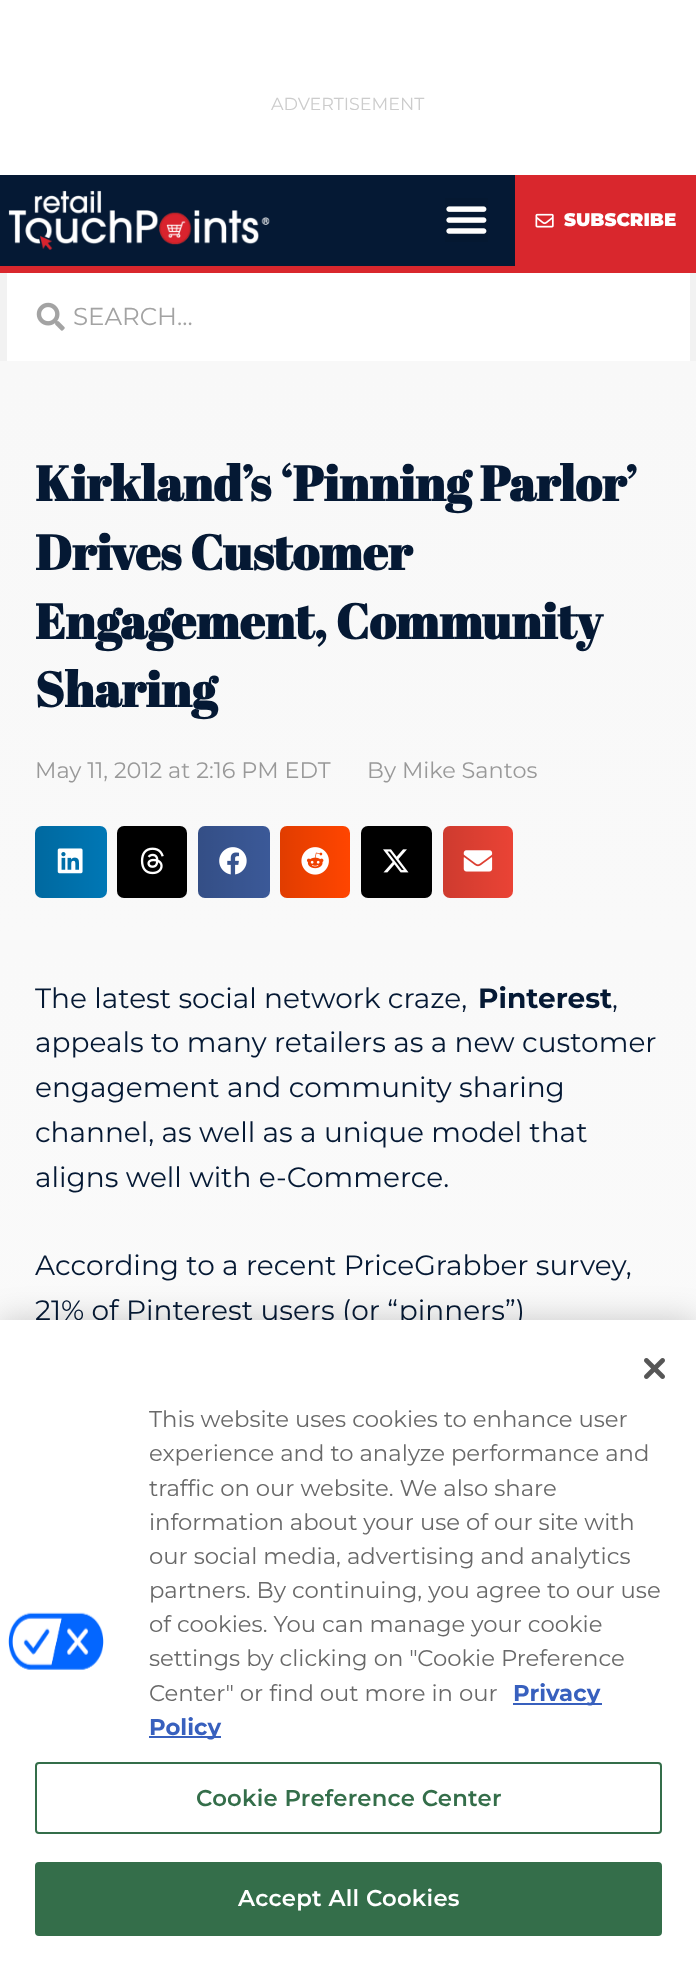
<svg xmlns="http://www.w3.org/2000/svg" width="696" height="1963">
<defs>
<linearGradient id="g1" gradientUnits="userSpaceOnUse" x1="348" y1="362" x2="348" y2="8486"><stop offset="0" stop-color="#f8f8f8"/><stop offset="0.5" stop-color="#fff"/></linearGradient>
<linearGradient id="g2" gradientUnits="userSpaceOnUse" x1="35" y1="862" x2="107" y2="862"><stop offset="0" stop-color="#000" stop-opacity="0.12"/><stop offset="1" stop-color="#000" stop-opacity="0"/></linearGradient>
<linearGradient id="g3" gradientUnits="userSpaceOnUse" x1="117" y1="862" x2="187" y2="862"><stop offset="0" stop-color="#000" stop-opacity="0.12"/><stop offset="1" stop-color="#000" stop-opacity="0"/></linearGradient>
<linearGradient id="g4" gradientUnits="userSpaceOnUse" x1="198" y1="862" x2="270" y2="862"><stop offset="0" stop-color="#000" stop-opacity="0.12"/><stop offset="1" stop-color="#000" stop-opacity="0"/></linearGradient>
<linearGradient id="g5" gradientUnits="userSpaceOnUse" x1="280" y1="862" x2="350" y2="862"><stop offset="0" stop-color="#000" stop-opacity="0.12"/><stop offset="1" stop-color="#000" stop-opacity="0"/></linearGradient>
<linearGradient id="g6" gradientUnits="userSpaceOnUse" x1="361" y1="862" x2="432" y2="862"><stop offset="0" stop-color="#000" stop-opacity="0.12"/><stop offset="1" stop-color="#000" stop-opacity="0"/></linearGradient>
<linearGradient id="g7" gradientUnits="userSpaceOnUse" x1="443" y1="862" x2="513" y2="862"><stop offset="0" stop-color="#000" stop-opacity="0.12"/><stop offset="1" stop-color="#000" stop-opacity="0"/></linearGradient>
</defs>
<rect width="100%" height="100%" fill="#fff"/>
<text x="271" y="110" style="font-family:Montserrat;font-size:17.5px;fill:#ccc">ADVERTISEMENT</text>
<rect y="175" width="515" height="91" fill="#051934"/>
<rect y="266" width="696" height="7" fill="#d9272d"/>
<image x="8" y="190" width="262" height="60" href="media/1.png"/>
<rect x="445" y="198" width="43" height="44" fill="#051831"/>
<image x="446" y="206" width="41" height="28" href="media/2.png"/>
<rect x="515" y="175" width="181" height="91" fill="#d9272d"/>
<image x="535" y="213" width="19" height="15" href="media/3.png"/>
<text x="564" y="226" style="font-family:Montserrat;font-size:18.25px;font-weight:900;fill:#fff">SUBSCRIBE</text>
<rect y="361" width="696" height="1" fill="#f8f8f8"/>
<rect x="690" y="273" width="6" height="88" fill="#f2f2f2"/>
<rect y="273" width="7" height="88" fill="#f2f2f2"/>
<image x="36" y="302" width="29" height="29" href="media/4.png"/>
<text x="73" y="325" style="font-family:Montserrat;font-size:24.5px;fill:#a3a3a3">SEARCH...</text>
<rect y="362" width="696" height="958" fill="url(#g1)"/>
<text x="35" y="501" style="font-family:Abril Fatface;font-size:49px;font-weight:bold;fill:#051934">Kirkland’s ‘Pinning Parlor’</text>
<text x="35" y="570" style="font-family:Abril Fatface;font-size:49px;font-weight:bold;fill:#051934">Drives Customer</text>
<text x="35" y="639" style="font-family:Abril Fatface;font-size:49px;font-weight:bold;fill:#051934">Engagement, Community</text>
<text x="35" y="707" style="font-family:Abril Fatface;font-size:49px;font-weight:bold;fill:#051934">Sharing</text>
<text x="35" y="778" style="font-family:Montserrat;font-size:22.4px;fill:#999">May 11, 2012 at 2:16 PM EDT</text>
<text x="367" y="778" style="font-family:Montserrat;font-size:22.4px;fill:#999">By Mike Santos</text>
<rect x="35" y="826" width="72" height="72" rx="7" fill="#0077b5"/>
<rect x="35" y="826" width="72" height="72" rx="7" fill="url(#g2)"/>
<image x="57" y="848" width="26" height="26" href="media/5.png"/>
<rect x="117" y="826" width="70" height="72" rx="7" fill="#000"/>
<rect x="117" y="826" width="70" height="72" rx="7" fill="url(#g3)"/>
<image x="140" y="847" width="24" height="28" href="media/6.png"/>
<rect x="198" y="826" width="72" height="72" rx="7" fill="#3b5998"/>
<rect x="198" y="826" width="72" height="72" rx="7" fill="url(#g4)"/>
<image x="219" y="847" width="28" height="28" href="media/7.png"/>
<rect x="280" y="826" width="70" height="72" rx="7" fill="#ff4500"/>
<rect x="280" y="826" width="70" height="72" rx="7" fill="url(#g5)"/>
<image x="301" y="847" width="28" height="28" href="media/8.png"/>
<rect x="361" y="826" width="71" height="72" rx="7" fill="#000"/>
<rect x="361" y="826" width="71" height="72" rx="7" fill="url(#g6)"/>
<image x="383" y="849" width="26" height="24" href="media/9.png"/>
<rect x="443" y="826" width="70" height="72" rx="7" fill="#ea4335"/>
<rect x="443" y="826" width="70" height="72" rx="7" fill="url(#g7)"/>
<image x="463" y="850" width="30" height="22" href="media/10.png"/>
<text x="35" y="1008" style="font-family:Montserrat;font-size:28px;fill:#051934">The latest social network craze,</text>
<text x="478" y="1008" style="font-family:Montserrat;font-size:28px;font-weight:bold;fill:#051934">Pinterest</text>
<text x="612" y="1008" style="font-family:Montserrat;font-size:28px;fill:#051934">,</text>
<text x="35" y="1052" style="font-family:Montserrat;font-size:28px;fill:#051934">appeals to many retailers as a new customer</text>
<text x="35" y="1097" style="font-family:Montserrat;font-size:28px;fill:#051934">engagement and community sharing</text>
<text x="35" y="1142" style="font-family:Montserrat;font-size:28px;fill:#051934">channel, as well as a unique model that</text>
<text x="35" y="1187" style="font-family:Montserrat;font-size:28px;fill:#051934">aligns well with e-Commerce.</text>
<text x="35" y="1275" style="font-family:Montserrat;font-size:28px;fill:#051934">According to a recent PriceGrabber survey,</text>
<text x="35" y="1320" style="font-family:Montserrat;font-size:28px;fill:#051934">21% of Pinterest users (or “pinners”)</text>
<rect y="1320" width="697" height="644" fill="#00000033" filter="blur(16px)"/>
<rect y="1320" width="696" height="643" fill="#fff"/>
<image x="644" y="1358" width="21" height="21" href="media/11.png"/>
<image x="8" y="1612" width="96" height="58" href="media/12.png"/>
<text x="149" y="1427" style="font-family:Montserrat;font-size:22.75px;fill:#696969">This website uses cookies to enhance user</text>
<text x="149" y="1461" style="font-family:Montserrat;font-size:22.75px;fill:#696969">experience and to analyze performance and</text>
<text x="149" y="1496" style="font-family:Montserrat;font-size:22.75px;fill:#696969">traffic on our website. We also share</text>
<text x="149" y="1530" style="font-family:Montserrat;font-size:22.75px;fill:#696969">information about your use of our site with</text>
<text x="149" y="1564" style="font-family:Montserrat;font-size:22.75px;fill:#696969">our social media, advertising and analytics</text>
<text x="149" y="1598" style="font-family:Montserrat;font-size:22.75px;fill:#696969">partners. By continuing, you agree to our use</text>
<text x="149" y="1632" style="font-family:Montserrat;font-size:22.75px;fill:#696969">of cookies. You can manage your cookie</text>
<text x="149" y="1666" style="font-family:Montserrat;font-size:22.75px;fill:#696969">settings by clicking on "Cookie Preference</text>
<text x="149" y="1701" style="font-family:Montserrat;font-size:22.75px;fill:#696969">Center" or find out more in our</text>
<rect x="513" y="1703" width="89" height="2" fill="#3860be"/>
<text x="513" y="1701" style="font-family:Montserrat;font-size:22.75px;font-weight:bold;fill:#3860be">Privacy</text>
<rect x="149" y="1736" width="72" height="2" fill="#3860be"/>
<text x="149" y="1735" style="font-family:Montserrat;font-size:22.75px;font-weight:bold;fill:#3860be">Policy</text>
<rect x="36" y="1763" width="625" height="70" rx="3" fill="none" stroke="#346e4a" stroke-width="2"/>
<text x="196" y="1806" style="font-family:Montserrat;font-size:22.75px;font-weight:600;letter-spacing:0.25px;fill:#346e4a">Cookie Preference Center</text>
<rect x="36" y="1863" width="625" height="72" rx="3" fill="#346e4a" stroke="#346e4a" stroke-width="2"/>
<text x="238" y="1906" style="font-family:Montserrat;font-size:22.75px;font-weight:600;letter-spacing:0.25px;fill:#fff">Accept All Cookies</text>
</svg>
